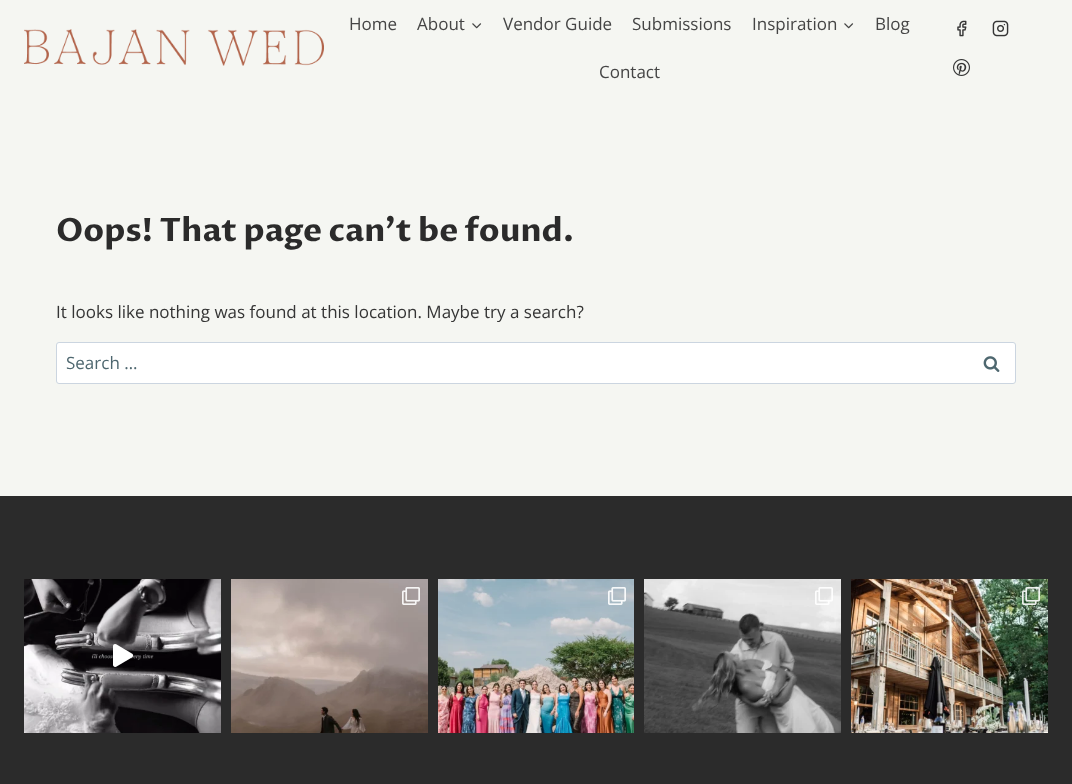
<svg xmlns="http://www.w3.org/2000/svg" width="1072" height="784">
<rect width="100%" height="100%" fill="#f5f6f2"/>
<image x="24" y="29" width="300" height="37" href="media/1.png"/>
<text x="349" y="30" style="font-family:Open Sans;font-size:17px;fill:#454545">Home</text>
<text x="417" y="30" style="font-family:Open Sans;font-size:17px;fill:#454545">About</text>
<image x="472" y="23" width="10" height="6" href="media/2.png"/>
<text x="503" y="30" style="font-family:Open Sans;font-size:17px;fill:#454545">Vendor Guide</text>
<text x="632" y="30" style="font-family:Open Sans;font-size:17px;fill:#454545">Submissions</text>
<text x="752" y="30" style="font-family:Open Sans;font-size:17px;fill:#454545">Inspiration</text>
<image x="844" y="23" width="10" height="6" href="media/2.png"/>
<text x="875" y="30" style="font-family:Open Sans;font-size:17px;fill:#454545">Blog</text>
<text x="599" y="78" style="font-family:Open Sans;font-size:17px;fill:#454545">Contact</text>
<image x="957" y="20" width="10" height="17" href="media/3.png"/>
<image x="992" y="20" width="17" height="17" href="media/4.png"/>
<image x="953" y="59" width="17" height="17" href="media/5.png"/>
<text x="56" y="241" style="font-family:Proza Libre;font-size:32px;font-weight:bold;fill:#2b2b2b">Oops! That page can’t be found.</text>
<text x="56" y="318" style="font-family:Open Sans;font-size:17px;fill:#353535">It looks like nothing was found at this location. Maybe try a search?</text>
<rect x="56.5" y="342.5" width="959" height="41" rx="2.5" fill="#fff" stroke="#cbd5e0"/>
<text x="66" y="369" style="font-family:Open Sans;font-size:17px;fill:#4e676f">Search …</text>
<image x="983" y="356" width="17" height="16" href="media/6.png"/>
<rect y="496" width="1072" height="288" fill="#2b2b2b"/>
<image x="24" y="579" width="197" height="154" href="media/7.png"/>
<image x="113" y="644" width="21" height="23" href="media/8.png"/>
<image x="231" y="579" width="197" height="154" href="media/9.png"/>
<image x="402" y="587" width="18" height="18" href="media/10.png"/>
<image x="438" y="579" width="196" height="154" href="media/11.png"/>
<image x="608" y="587" width="18" height="18" href="media/12.png"/>
<image x="644" y="579" width="197" height="154" href="media/13.png"/>
<image x="815" y="587" width="18" height="18" href="media/14.png"/>
<image x="851" y="579" width="197" height="154" href="media/15.png"/>
<image x="1022" y="587" width="18" height="18" href="media/16.png"/>
</svg>
